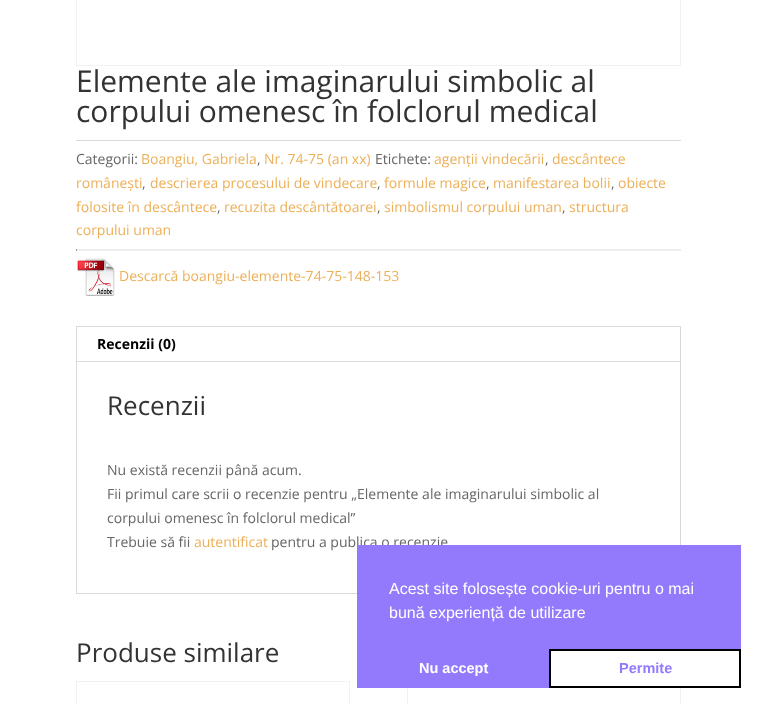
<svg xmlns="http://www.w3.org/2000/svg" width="757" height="704">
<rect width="100%" height="100%" fill="#fff"/>
<rect x="76.5" y="-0.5" width="604" height="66" fill="none" stroke="#f2f2f2"/>
<text x="76" y="92" style="font-family:Open Sans;font-size:30px;fill:#333">Elemente ale imaginarului simbolic al</text>
<text x="76" y="122" style="font-family:Open Sans;font-size:30px;fill:#333">corpului omenesc în folclorul medical</text>
<rect x="76" y="140" width="605" height="1" fill="#dadada"/>
<text x="76" y="164" style="font-family:Open Sans;font-size:14px;fill:#666">Categorii:</text>
<text x="141" y="164" style="font-family:Open Sans;font-size:14px;fill:#edb059">Boangiu, Gabriela</text>
<text x="257" y="164" style="font-family:Open Sans;font-size:14px;fill:#666">,</text>
<text x="264" y="164" style="font-family:Open Sans;font-size:14px;fill:#edb059">Nr. 74-75 (an xx)</text>
<text x="375" y="164" style="font-family:Open Sans;font-size:14px;fill:#666">Etichete:</text>
<text x="434" y="164" style="font-family:Open Sans;font-size:14px;fill:#edb059">agenții vindecării</text>
<text x="545" y="164" style="font-family:Open Sans;font-size:14px;fill:#666">,</text>
<text x="552" y="164" style="font-family:Open Sans;font-size:14px;fill:#edb059">descântece</text>
<text x="76" y="188" style="font-family:Open Sans;font-size:14px;fill:#edb059">românești</text>
<text x="142" y="188" style="font-family:Open Sans;font-size:14px;fill:#666">,</text>
<text x="150" y="188" style="font-family:Open Sans;font-size:14px;fill:#edb059">descrierea procesului de vindecare</text>
<text x="377" y="188" style="font-family:Open Sans;font-size:14px;fill:#666">,</text>
<text x="384" y="188" style="font-family:Open Sans;font-size:14px;fill:#edb059">formule magice</text>
<text x="486" y="188" style="font-family:Open Sans;font-size:14px;fill:#666">,</text>
<text x="493" y="188" style="font-family:Open Sans;font-size:14px;fill:#edb059">manifestarea bolii</text>
<text x="611" y="188" style="font-family:Open Sans;font-size:14px;fill:#666">,</text>
<text x="618" y="188" style="font-family:Open Sans;font-size:14px;fill:#edb059">obiecte</text>
<text x="76" y="212" style="font-family:Open Sans;font-size:14px;fill:#edb059">folosite în descântece</text>
<text x="217" y="212" style="font-family:Open Sans;font-size:14px;fill:#666">,</text>
<text x="224" y="212" style="font-family:Open Sans;font-size:14px;fill:#edb059">recuzita descântătoarei</text>
<text x="377" y="212" style="font-family:Open Sans;font-size:14px;fill:#666">,</text>
<text x="384" y="212" style="font-family:Open Sans;font-size:14px;fill:#edb059">simbolismul corpului uman</text>
<text x="562" y="212" style="font-family:Open Sans;font-size:14px;fill:#666">,</text>
<text x="569" y="212" style="font-family:Open Sans;font-size:14px;fill:#edb059">structura</text>
<text x="76" y="235" style="font-family:Open Sans;font-size:14px;fill:#edb059">corpului uman</text>
<rect x="76" y="249" width="605" height="1" fill="#eee"/>
<rect x="680" y="249" width="1" height="2" fill="#eee"/>
<rect x="76" y="250" width="605" height="1" fill="#eee"/>
<rect x="76" y="249" width="1" height="2" fill="#9f9f9f"/>
<image x="77" y="258" width="38" height="38" href="media/1.png"/>
<text x="119" y="281" style="font-family:Open Sans;font-size:14px;fill:#edb059">Descarcă boangiu-elemente-74-75-148-153</text>
<rect x="76.5" y="326.5" width="604" height="267" fill="none" stroke="#d9d9d9"/>
<rect x="77" y="361" width="603" height="1" fill="#e0dadf"/>
<text x="97" y="349" style="font-family:Open Sans;font-size:14px;font-weight:bold;fill:#000">Recenzii (0)</text>
<text x="107" y="415" style="font-family:Open Sans;font-size:26px;fill:#333">Recenzii</text>
<text x="107" y="475" style="font-family:Open Sans;font-size:14px;fill:#666">Nu există recenzii până acum.</text>
<text x="107" y="499" style="font-family:Open Sans;font-size:14px;fill:#666">Fii primul care scrii o recenzie pentru „Elemente ale imaginarului simbolic al</text>
<text x="107" y="523" style="font-family:Open Sans;font-size:14px;fill:#666">corpului omenesc în folclorul medical”</text>
<text x="107" y="547" style="font-family:Open Sans;font-size:14px;fill:#666">Trebuie să fii</text>
<text x="194" y="547" style="font-family:Open Sans;font-size:14px;fill:#edb059">autentificat</text>
<text x="271" y="547" style="font-family:Open Sans;font-size:14px;fill:#666">pentru a publica o recenzie</text>
<text x="76" y="662" style="font-family:Open Sans;font-size:26px;fill:#333">Produse similare</text>
<rect x="76.5" y="681.5" width="273" height="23" fill="none" stroke="#f2f2f2"/>
<rect x="407.5" y="681.5" width="273" height="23" fill="none" stroke="#f2f2f2"/>
<rect x="357" y="545" width="384" height="143" fill="#937afc"/>
<text x="389" y="594" style="font-family:Liberation Sans;font-size:16px;fill:#fff">Acest site folosește cookie-uri pentru o mai</text>
<text x="389" y="618" style="font-family:Liberation Sans;font-size:16px;fill:#fff">bună experiență de utilizare</text>
<text x="419" y="673" style="font-family:Liberation Sans;font-size:14.5px;font-weight:bold;fill:#fff">Nu accept</text>
<rect x="550" y="650" width="190" height="37" fill="#fff" stroke="#000" stroke-width="2"/>
<text x="619" y="673" style="font-family:Liberation Sans;font-size:14.5px;font-weight:bold;fill:#937afc">Permite</text>
</svg>
